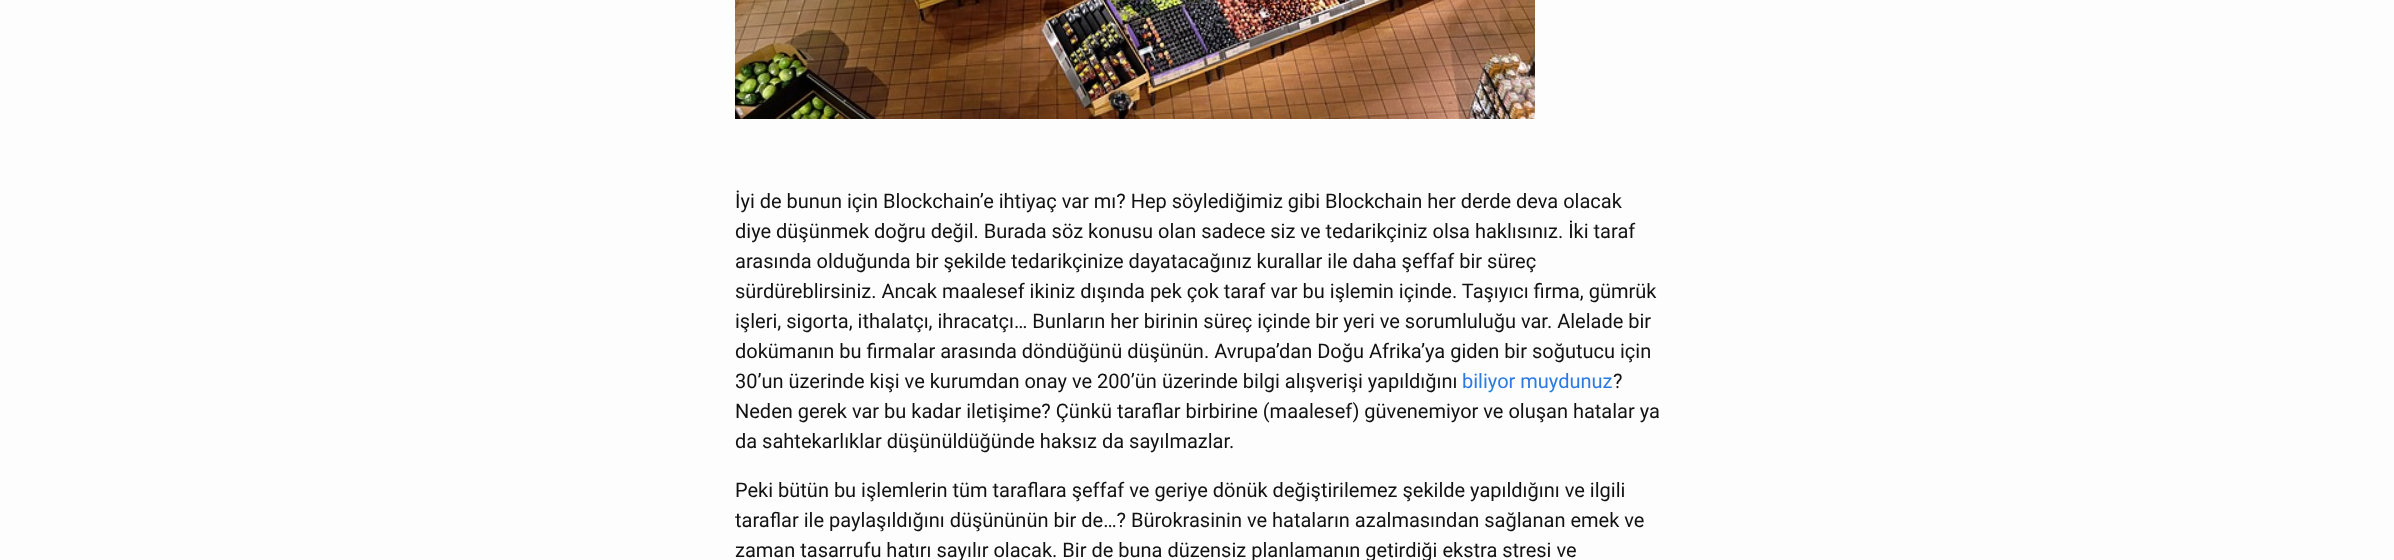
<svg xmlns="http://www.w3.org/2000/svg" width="2394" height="560">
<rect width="100%" height="100%" fill="#fdfdfd"/>
<image x="735" y="0" width="800" height="119" href="media/1.png"/>
<text x="735" y="208" style="font-family:Roboto;font-size:20px;fill:#111">İyi de bunun için Blockchain’e ihtiyaç var mı? Hep söylediğimiz gibi Blockchain her derde deva olacak</text>
<text x="735" y="238" style="font-family:Roboto;font-size:20px;fill:#111">diye düşünmek doğru değil. Burada söz konusu olan sadece siz ve tedarikçiniz olsa haklısınız. İki taraf</text>
<text x="735" y="268" style="font-family:Roboto;font-size:20px;fill:#111">arasında olduğunda bir şekilde tedarikçinize dayatacağınız kurallar ile daha şeffaf bir süreç</text>
<text x="735" y="298" style="font-family:Roboto;font-size:20px;fill:#111">sürdüreblirsiniz. Ancak maalesef ikiniz dışında pek çok taraf var bu işlemin içinde. Taşıyıcı firma, gümrük</text>
<text x="735" y="328" style="font-family:Roboto;font-size:20px;fill:#111">işleri, sigorta, ithalatçı, ihracatçı… Bunların her birinin süreç içinde bir yeri ve sorumluluğu var. Alelade bir</text>
<text x="735" y="358" style="font-family:Roboto;font-size:20px;fill:#111">dokümanın bu firmalar arasında döndüğünü düşünün. Avrupa’dan Doğu Afrika’ya giden bir soğutucu için</text>
<text x="735" y="388" style="font-family:Roboto;font-size:20px;fill:#111">30’un üzerinde kişi ve kurumdan onay ve 200’ün üzerinde bilgi alışverişi yapıldığını</text>
<text x="1462" y="388" style="font-family:Roboto;font-size:20px;fill:#2a7ae2">biliyor muydunuz</text>
<text x="1613" y="388" style="font-family:Roboto;font-size:20px;fill:#111">?</text>
<text x="735" y="418" style="font-family:Roboto;font-size:20px;fill:#111">Neden gerek var bu kadar iletişime? Çünkü taraflar birbirine (maalesef) güvenemiyor ve oluşan hatalar ya</text>
<text x="735" y="448" style="font-family:Roboto;font-size:20px;fill:#111">da sahtekarlıklar düşünüldüğünde haksız da sayılmazlar.</text>
<text x="735" y="497" style="font-family:Roboto;font-size:20px;fill:#111">Peki bütün bu işlemlerin tüm taraflara şeffaf ve geriye dönük değiştirilemez şekilde yapıldığını ve ilgili</text>
<text x="735" y="527" style="font-family:Roboto;font-size:20px;fill:#111">taraflar ile paylaşıldığını düşününün bir de…? Bürokrasinin ve hataların azalmasından sağlanan emek ve</text>
<text x="735" y="557" style="font-family:Roboto;font-size:20px;fill:#111">zaman tasarrufu hatırı sayılır olacak. Bir de buna düzensiz planlamanın getirdiği ekstra stresi ve</text>
</svg>
